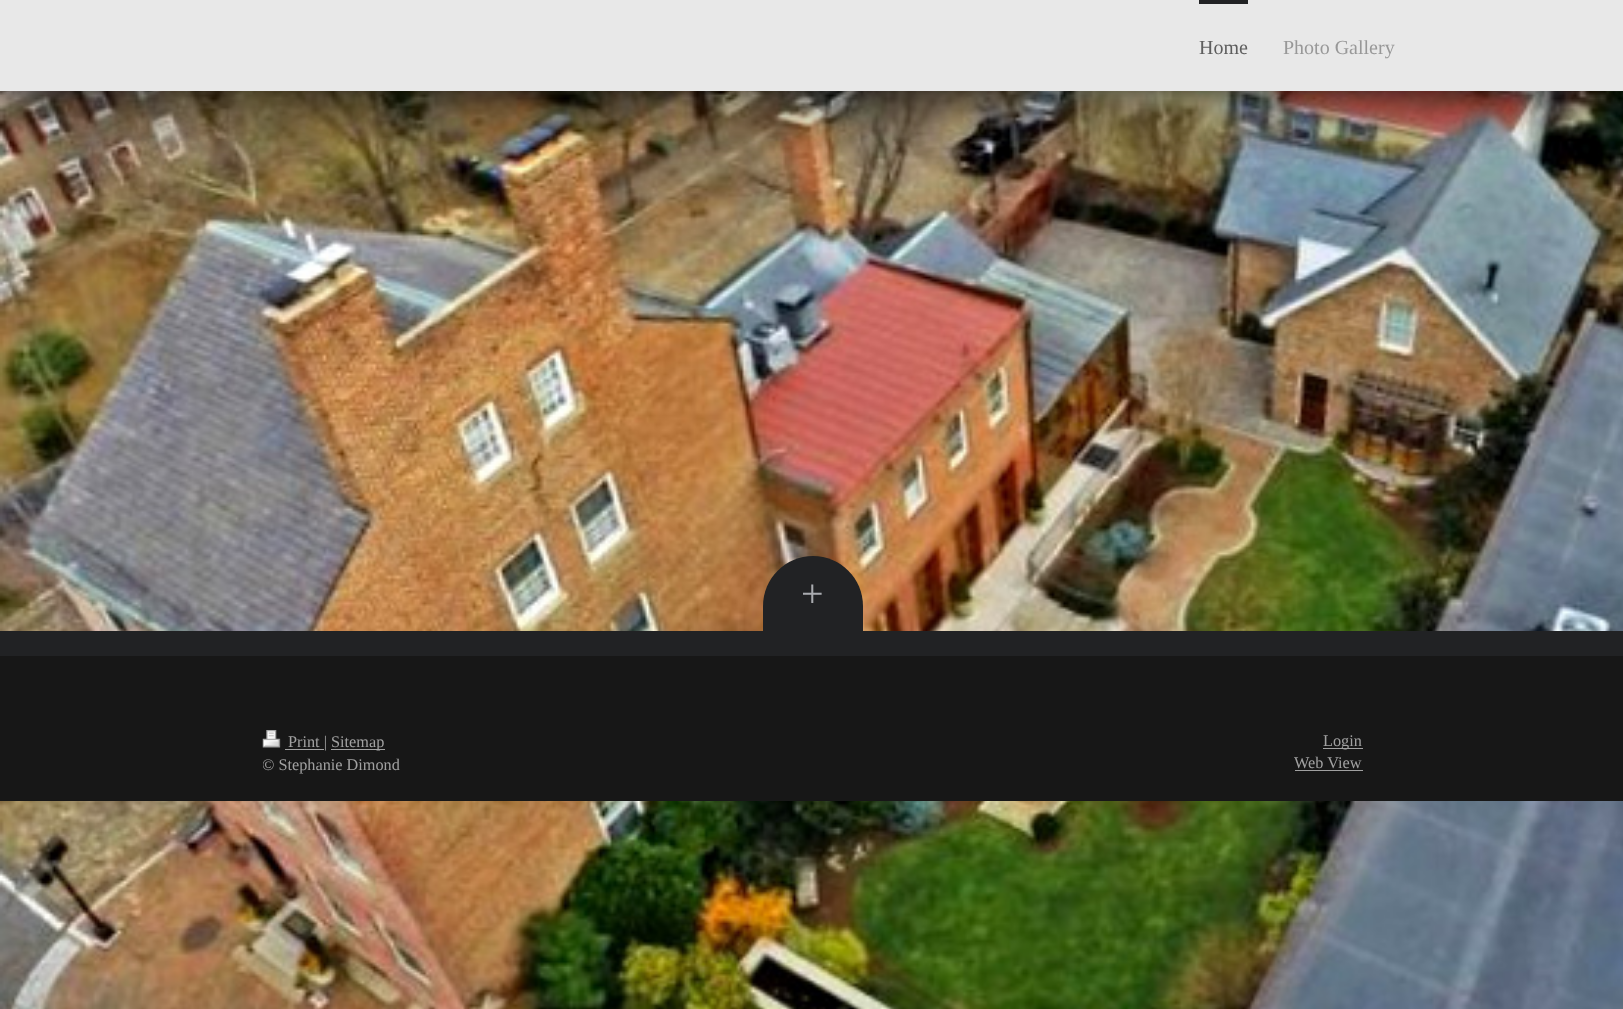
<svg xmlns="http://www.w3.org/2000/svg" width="1623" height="1009">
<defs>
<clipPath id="clip1"><rect x="263" y="730" width="1100" height="46"/></clipPath>
</defs>
<rect width="100%" height="100%" fill="#fff"/>
<image x="0" y="91" width="1623" height="918" href="media/1.png"/>
<rect x="5" width="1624" height="91" fill="#000" filter="blur(31px)"/>
<rect width="1623" height="91" fill="#e8e8e8"/>
<rect x="1199" width="49" height="4" fill="#212224"/>
<text x="1199" y="54" style="font-family:Liberation Serif;font-size:20px;fill:#5e5e5e">Home</text>
<text x="1283" y="54" style="font-family:Liberation Serif;font-size:20px;fill:#989898">Photo Gallery</text>
<rect y="631" width="1623" height="25" fill="#212224"/>
<path d="M813 556c27.5 0 50 22.5 50 50v25h-100v-25c0-27.5 22.5-50 50-50z" fill="#212224"/>
<text x="801" y="607" style="font-family:Liberation Serif;font-size:40px;fill:#a9abaf">+</text>
<rect y="656" width="1623" height="145" fill="#171717"/>
<image x="262" y="730" width="19" height="18" href="media/2.png"/>
<rect x="285" y="749" width="39" height="1" fill="#a1a1a1"/>
<text x="288" y="747" style="font-family:Liberation Serif;font-size:16.25px;fill:#a1a1a1">Print |</text>
<rect x="331" y="749" width="54" height="1" fill="#a1a1a1"/>
<text x="331" y="747" style="font-family:Liberation Serif;font-size:16.25px;fill:#a1a1a1">Sitemap</text>
<g clip-path="url(#clip1)">
<text x="262" y="770" style="font-family:Liberation Serif;font-size:16.25px;fill:#a1a1a1">© Stephanie Dimond</text>
</g>
<rect x="1323" y="748" width="40" height="1" fill="#a1a1a1"/>
<text x="1323" y="746" style="font-family:Liberation Serif;font-size:16.25px;fill:#a1a1a1">Login</text>
<text x="1294" y="768" style="font-family:Liberation Serif;font-size:16.25px;fill:#a1a1a1">Web View</text>
<rect x="1295" y="770" width="68" height="1" fill="#a1a1a1"/>
</svg>
